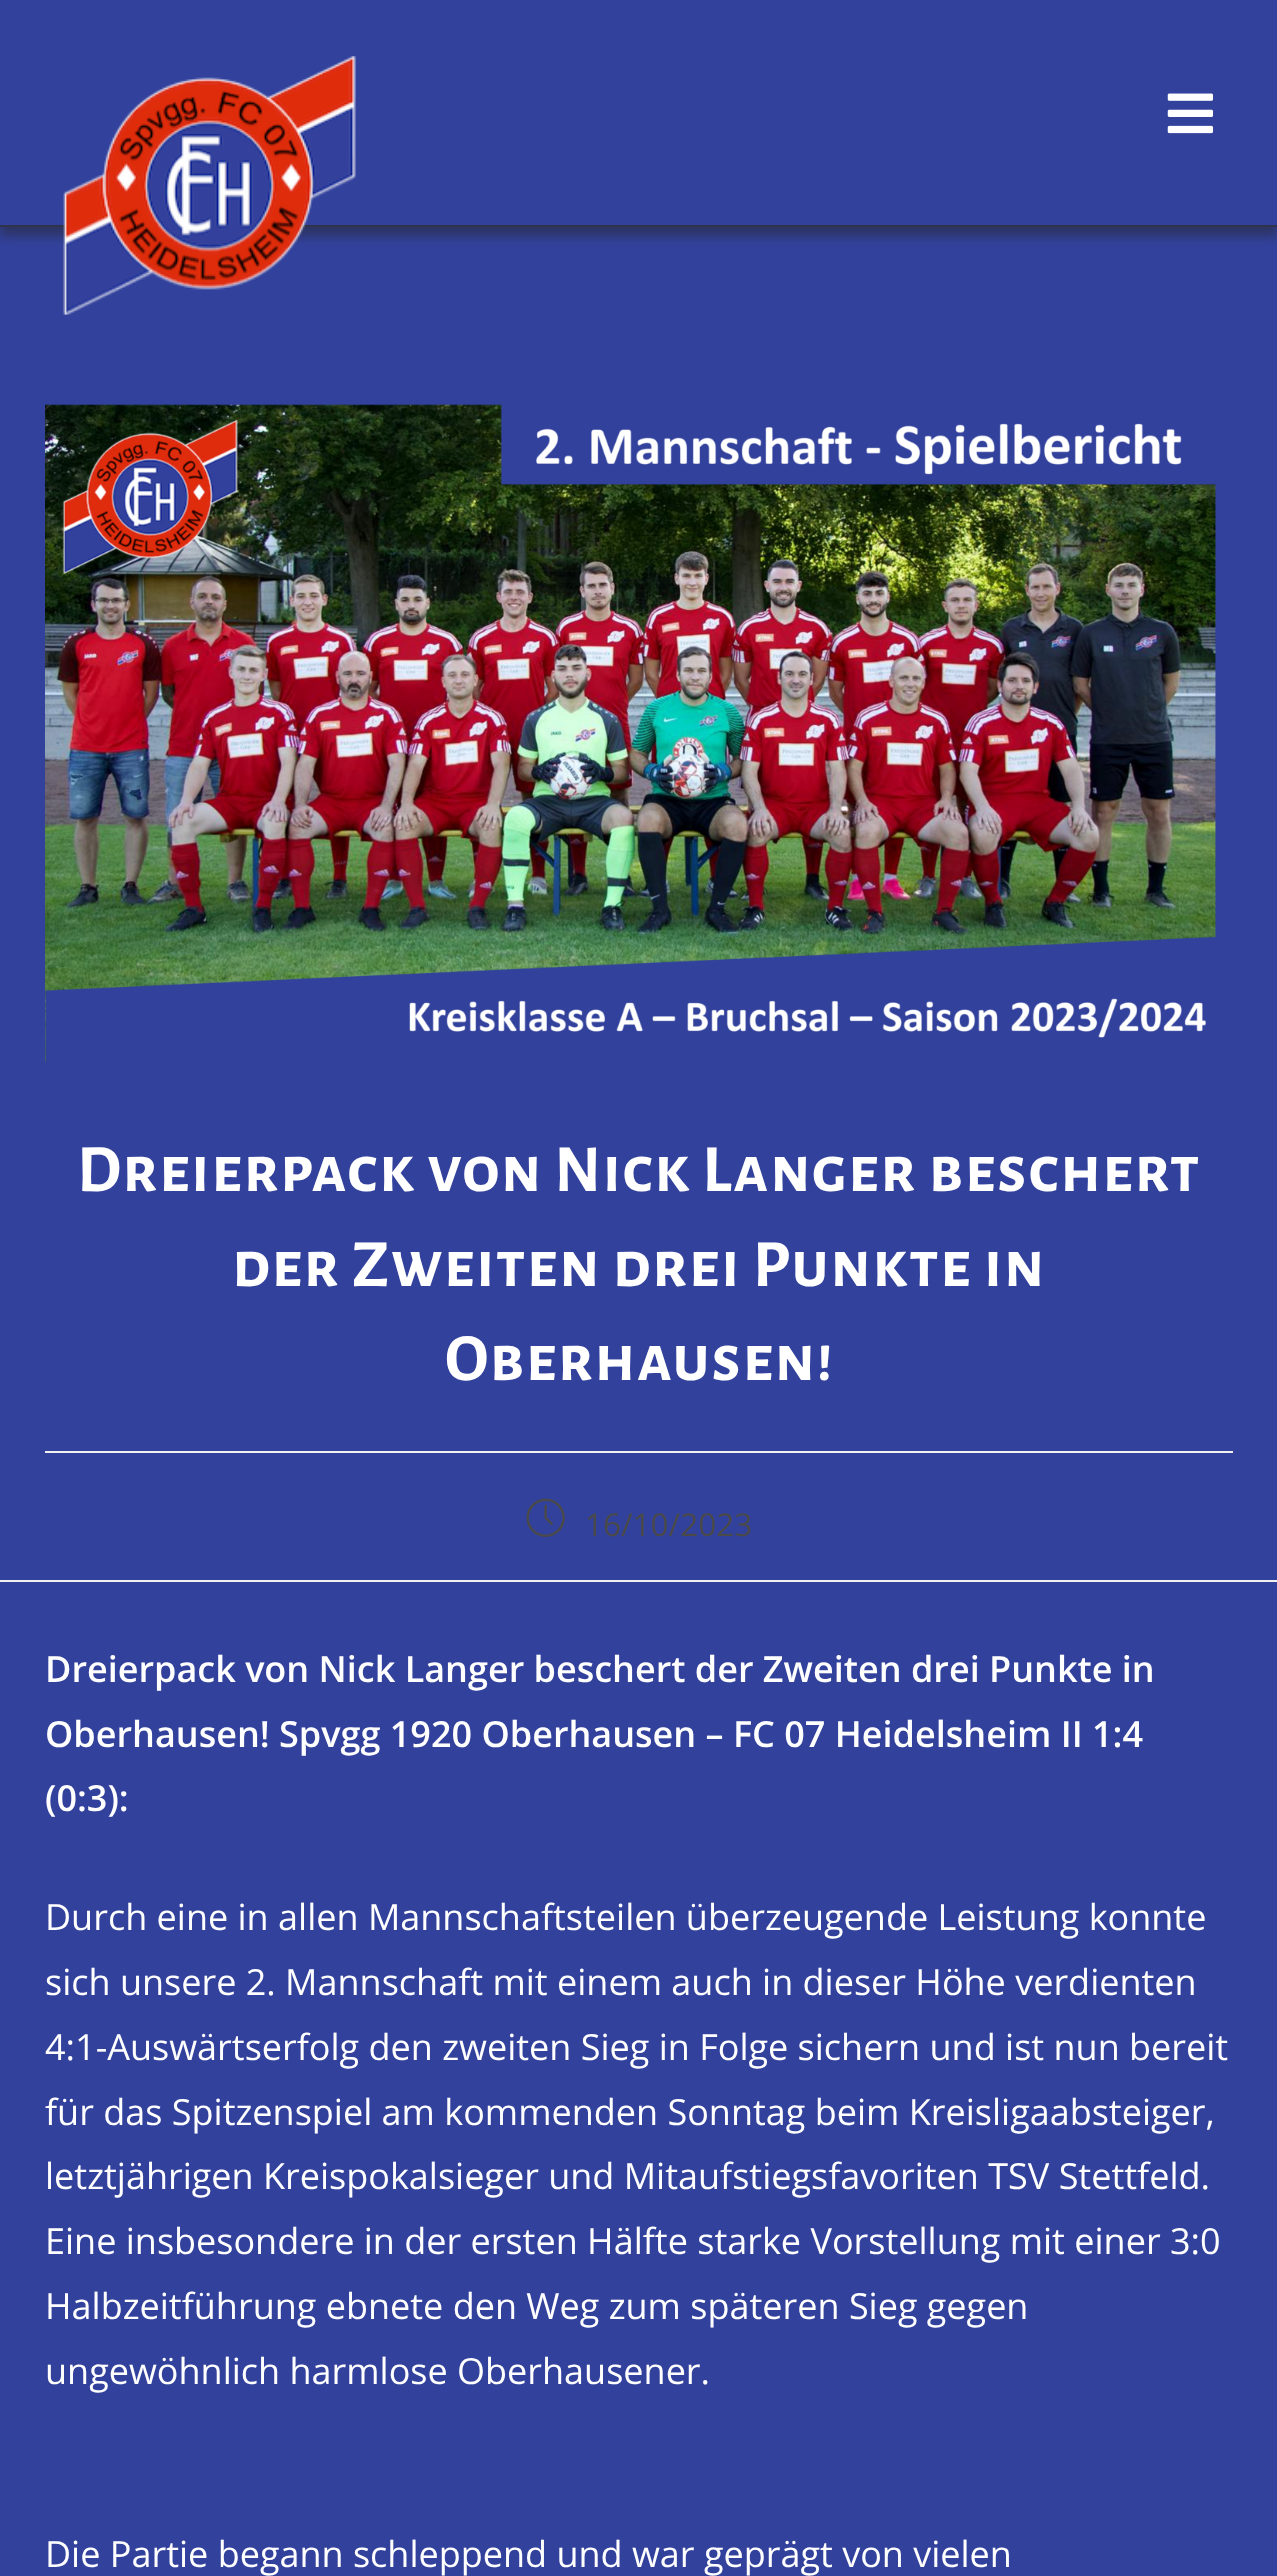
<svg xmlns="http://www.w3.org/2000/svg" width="1277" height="2576">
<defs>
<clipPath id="clip1"><rect x="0" y="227" width="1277" height="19"/></clipPath>
</defs>
<rect width="100%" height="100%" fill="#32419c"/>
<g clip-path="url(#clip1)">
<rect y="9" width="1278" height="227" fill="#27272780" filter="blur(5.5px)"/>
</g>
<rect y="225" width="1277" height="2" fill="#30344a"/>
<image x="63" y="56" width="293" height="259" href="media/1.png"/>
<image x="1167" y="93" width="47" height="41" href="media/2.png"/>
<image x="45" y="404" width="1171" height="658" href="media/3.png"/>
<rect x="45" y="1451" width="1188" height="2" fill="#f1f1f1"/>
<text x="77" y="1191" style="font-family:Alegreya Sans SC;font-size:67.5px;font-weight:bold;letter-spacing:1.35px;fill:#fff">Dreierpack von Nick Langer beschert</text>
<text x="232" y="1286" style="font-family:Alegreya Sans SC;font-size:67.5px;font-weight:bold;letter-spacing:1.35px;fill:#fff">der Zweiten drei Punkte in</text>
<text x="445" y="1380" style="font-family:Alegreya Sans SC;font-size:67.5px;font-weight:bold;letter-spacing:1.35px;fill:#fff">Oberhausen!</text>
<rect y="1580" width="1277" height="2" fill="#f1f1f1"/>
<image x="526" y="1498" width="39" height="39" href="media/4.png"/>
<text x="585" y="1536" style="font-family:Open Sans;font-size:31.5px;fill:#4a4a4a">16/10/2023</text>
<text x="45" y="1682" style="font-family:Open Sans;font-size:36px;font-weight:600;fill:#fff">Dreierpack von Nick Langer beschert der Zweiten drei Punkte in</text>
<text x="45" y="1747" style="font-family:Open Sans;font-size:36px;font-weight:600;fill:#fff">Oberhausen! Spvgg 1920 Oberhausen – FC 07 Heidelsheim II 1:4</text>
<text x="45" y="1811" style="font-family:Open Sans;font-size:36px;font-weight:600;fill:#fff">(0:3):</text>
<text x="45" y="1930" style="font-family:Open Sans;font-size:36px;fill:#fff">Durch eine in allen Mannschaftsteilen überzeugende Leistung konnte</text>
<text x="45" y="1995" style="font-family:Open Sans;font-size:36px;fill:#fff">sich unsere 2. Mannschaft mit einem auch in dieser Höhe verdienten</text>
<text x="45" y="2060" style="font-family:Open Sans;font-size:36px;fill:#fff">4:1-Auswärtserfolg den zweiten Sieg in Folge sichern und ist nun bereit</text>
<text x="45" y="2125" style="font-family:Open Sans;font-size:36px;fill:#fff">für das Spitzenspiel am kommenden Sonntag beim Kreisligaabsteiger,</text>
<text x="45" y="2189" style="font-family:Open Sans;font-size:36px;fill:#fff">letztjährigen Kreispokalsieger und Mitaufstiegsfavoriten TSV Stettfeld.</text>
<text x="45" y="2254" style="font-family:Open Sans;font-size:36px;fill:#fff">Eine insbesondere in der ersten Hälfte starke Vorstellung mit einer 3:0</text>
<text x="45" y="2319" style="font-family:Open Sans;font-size:36px;fill:#fff">Halbzeitführung ebnete den Weg zum späteren Sieg gegen</text>
<text x="45" y="2384" style="font-family:Open Sans;font-size:36px;fill:#fff">ungewöhnlich harmlose Oberhausener.</text>
<text x="45" y="2567" style="font-family:Open Sans;font-size:36px;fill:#fff">Die Partie begann schleppend und war geprägt von vielen</text>
</svg>
